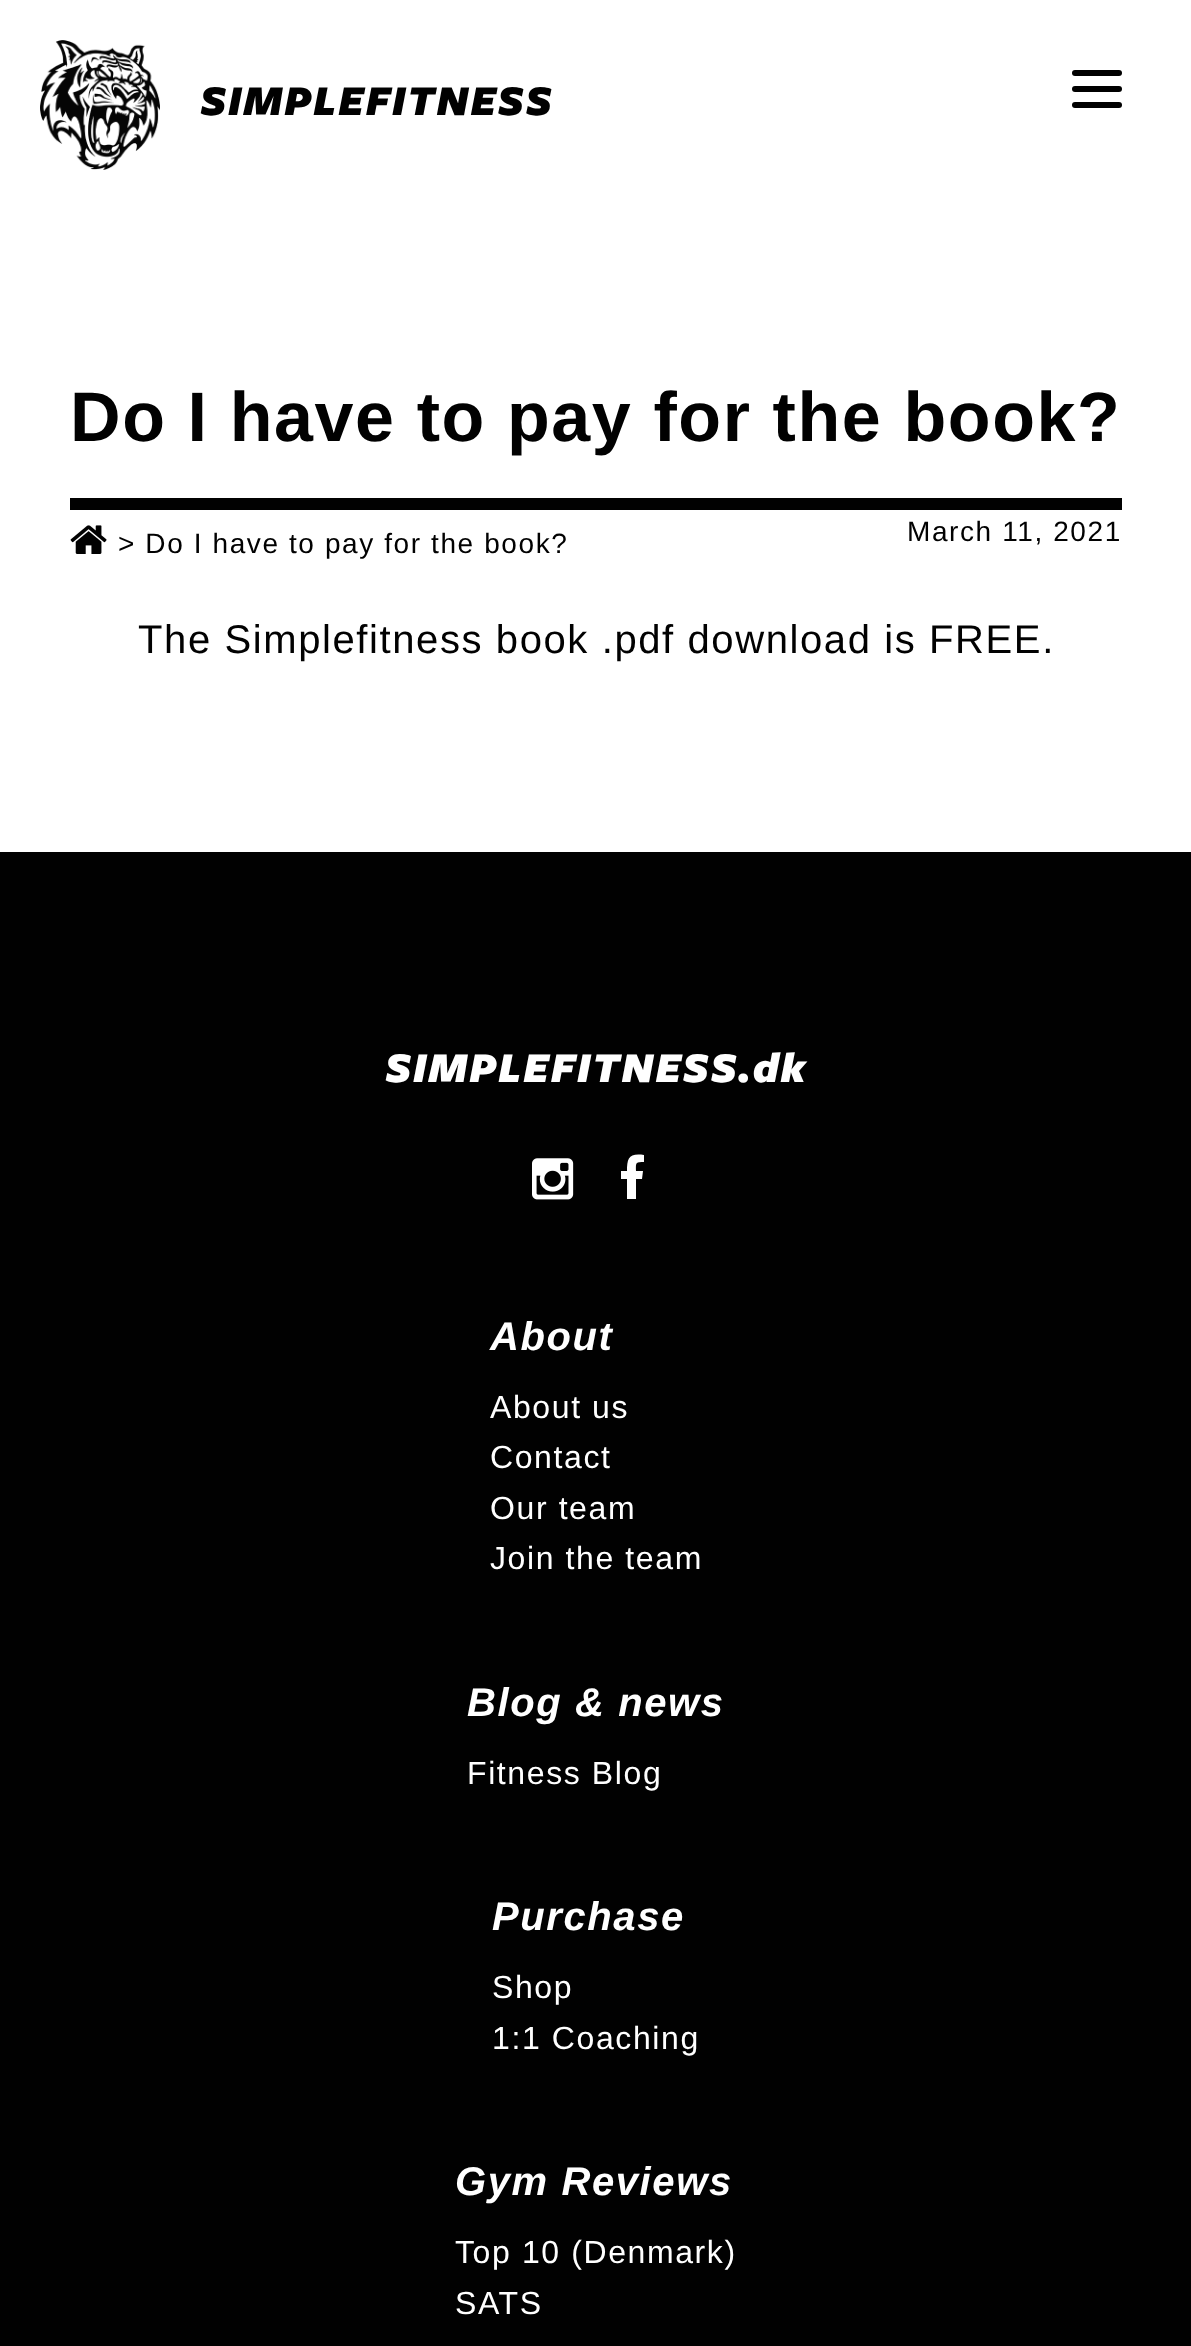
<svg xmlns="http://www.w3.org/2000/svg" width="1191" height="2346">
<rect width="100%" height="100%" fill="#fff"/>
<image x="40" y="40" width="120" height="130" href="media/1.png"/>
<text x="200" y="115" style="font-family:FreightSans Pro;font-size:44px;font-weight:900;font-style:italic;letter-spacing:1.6px;fill:#010101">SIMPLEFITNESS</text>
<rect x="1072" y="70" width="50" height="6" rx="3" fill="#000"/>
<rect x="1072" y="86" width="50" height="6" rx="3" fill="#000"/>
<rect x="1072" y="102" width="50" height="6" rx="3" fill="#000"/>
<text x="70" y="441" style="font-family:Liberation Sans;font-size:70px;font-weight:bold;letter-spacing:1.6px;fill:#010101">Do I have to pay for the book?</text>
<rect x="70" y="498" width="1052" height="12" fill="#010101"/>
<image x="70" y="525" width="37" height="29" href="media/2.png"/>
<text x="118" y="553" style="font-family:Liberation Sans;font-size:28px;letter-spacing:1.6px;fill:#010101">&gt; Do I have to pay for the book?</text>
<text x="907" y="541" style="font-family:Liberation Sans;font-size:28px;letter-spacing:1.6px;fill:#010101">March 11, 2021</text>
<text x="138" y="653" style="font-family:Liberation Sans;font-size:40px;letter-spacing:1.6px;fill:#010101">The Simplefitness book .pdf download is FREE.</text>
<rect y="852" width="1191" height="1494" fill="#010101"/>
<text x="385" y="1082" style="font-family:FreightSans Pro;font-size:44px;font-weight:900;font-style:italic;letter-spacing:1.6px;fill:#fff">SIMPLEFITNESS.dk</text>
<image x="532" y="1158" width="42" height="42" href="media/3.png"/>
<path d="M644 1155v7c-9 0-8 1-8 9h7l-1 8h-6v20h-9v-20h-6v-8h6c0-13 2-18 17-16z" fill="#fff"/>
<text x="490" y="1350" style="font-family:Liberation Sans;font-size:40px;font-weight:bold;font-style:italic;letter-spacing:1.6px;fill:#fff">About</text>
<text x="490" y="1418" style="font-family:Liberation Sans;font-size:32px;letter-spacing:1.6px;fill:#fff">About us</text>
<text x="490" y="1468" style="font-family:Liberation Sans;font-size:32px;letter-spacing:1.6px;fill:#fff">Contact</text>
<text x="490" y="1519" style="font-family:Liberation Sans;font-size:32px;letter-spacing:1.6px;fill:#fff">Our team</text>
<text x="490" y="1569" style="font-family:Liberation Sans;font-size:32px;letter-spacing:1.6px;fill:#fff">Join the team</text>
<text x="467" y="1716" style="font-family:Liberation Sans;font-size:40px;font-weight:bold;font-style:italic;letter-spacing:1.6px;fill:#fff">Blog &amp; news</text>
<text x="467" y="1784" style="font-family:Liberation Sans;font-size:32px;letter-spacing:1.6px;fill:#fff">Fitness Blog</text>
<text x="492" y="1930" style="font-family:Liberation Sans;font-size:40px;font-weight:bold;font-style:italic;letter-spacing:1.6px;fill:#fff">Purchase</text>
<text x="492" y="1998" style="font-family:Liberation Sans;font-size:32px;letter-spacing:1.6px;fill:#fff">Shop</text>
<text x="492" y="2049" style="font-family:Liberation Sans;font-size:32px;letter-spacing:1.6px;fill:#fff">1:1 Coaching</text>
<text x="455" y="2195" style="font-family:Liberation Sans;font-size:40px;font-weight:bold;font-style:italic;letter-spacing:1.6px;fill:#fff">Gym Reviews</text>
<text x="455" y="2263" style="font-family:Liberation Sans;font-size:32px;letter-spacing:1.6px;fill:#fff">Top 10 (Denmark)</text>
<text x="455" y="2314" style="font-family:Liberation Sans;font-size:32px;letter-spacing:1.6px;fill:#fff">SATS</text>
</svg>
